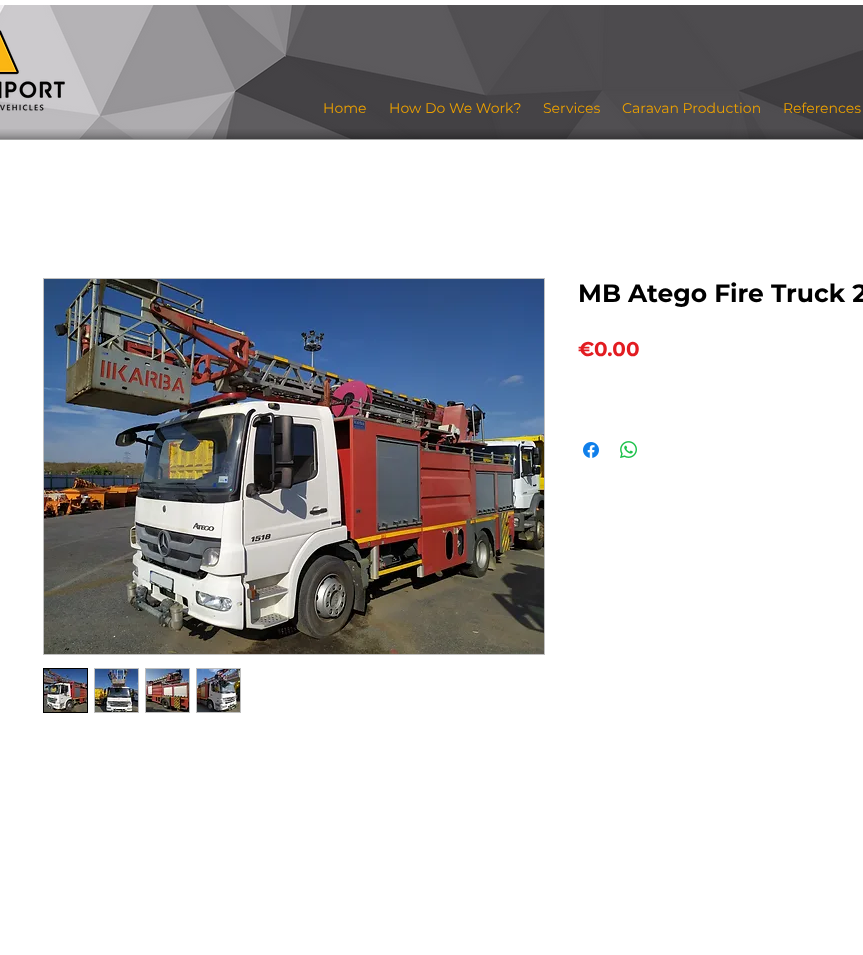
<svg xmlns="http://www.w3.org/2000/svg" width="863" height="955">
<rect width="100%" height="100%" fill="#fff"/>
<image x="0" y="5" width="863" height="134" href="media/1.png"/>
<image x="0" y="30" width="65" height="81" href="media/2.png"/>
<text x="323" y="113" style="font-family:Montserrat;font-size:14px;fill:#eba000">Home</text>
<text x="389" y="113" style="font-family:Montserrat;font-size:14px;fill:#eba000">How Do We Work?</text>
<text x="543" y="113" style="font-family:Montserrat;font-size:14px;fill:#eba000">Services</text>
<text x="622" y="113" style="font-family:Montserrat;font-size:14px;fill:#eba000">Caravan Production</text>
<text x="783" y="113" style="font-family:Montserrat;font-size:14px;fill:#eba000">References</text>
<image x="0" y="129" width="863" height="11" href="media/3.png"/>
<rect x="43.5" y="278.5" width="501" height="376" fill="none" stroke="#bfbfbf"/>
<image x="44" y="279" width="500" height="375" href="media/4.png"/>
<rect x="43.5" y="668.5" width="44" height="44" fill="none" stroke="#000"/>
<image x="44" y="669" width="43" height="43" href="media/5.png"/>
<rect x="94.5" y="668.5" width="44" height="44" fill="none" stroke="#bfbfbf"/>
<image x="95" y="669" width="43" height="43" href="media/6.png"/>
<rect x="145.5" y="668.5" width="44" height="44" fill="none" stroke="#bfbfbf"/>
<image x="146" y="669" width="43" height="43" href="media/7.png"/>
<rect x="196.5" y="668.5" width="44" height="44" fill="none" stroke="#bfbfbf"/>
<image x="197" y="669" width="43" height="43" href="media/8.png"/>
<text x="578" y="302" style="font-family:Montserrat;font-size:25px;font-weight:bold;fill:#000">MB Atego Fire Truck 2</text>
<text x="578" y="356" style="font-family:Montserrat;font-size:20px;font-weight:bold;fill:#e21c21">€0.00</text>
<image x="583" y="442" width="16" height="16" href="media/9.png"/>
<image x="620" y="441" width="17" height="17" href="media/10.png"/>
</svg>
